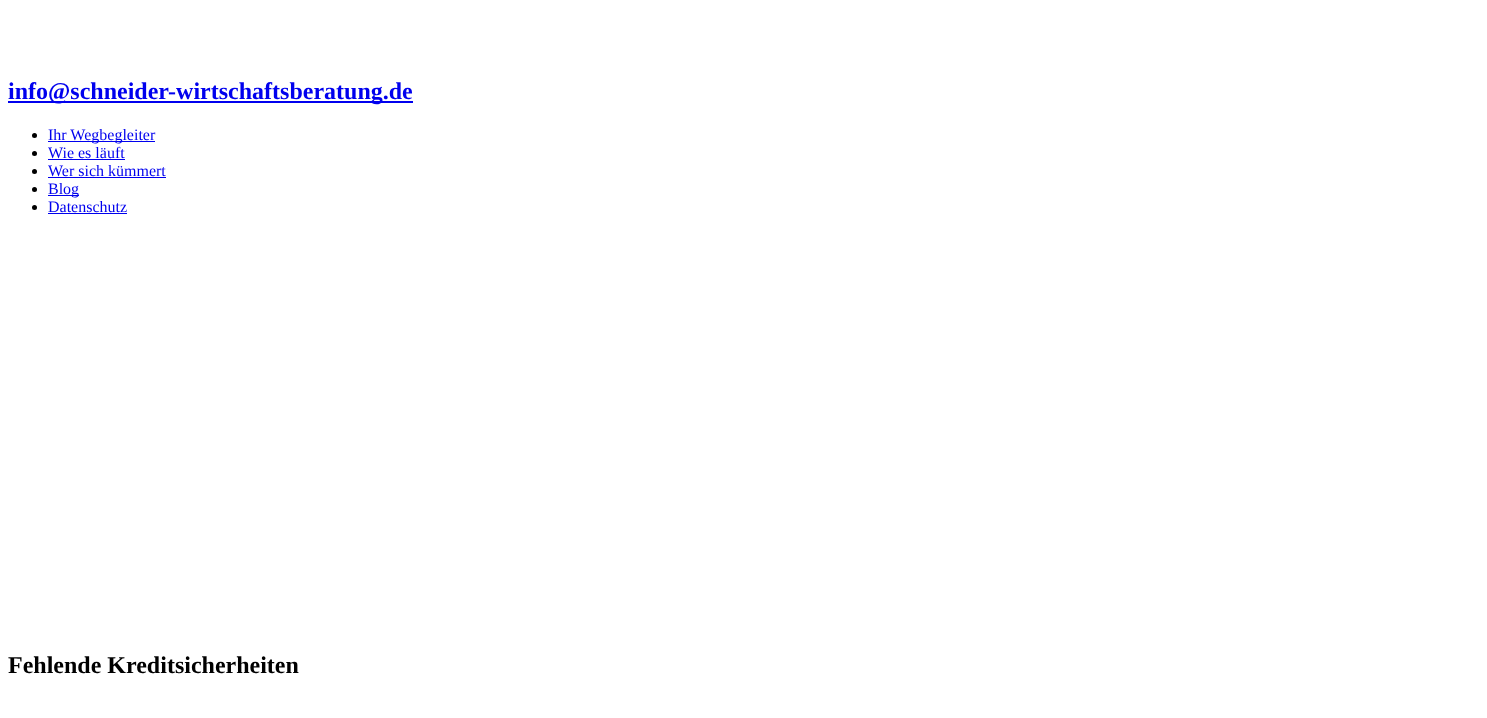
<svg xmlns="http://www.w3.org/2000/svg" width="1487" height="718">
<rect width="100%" height="100%" fill="#fff"/>
<rect x="8" y="101" width="405" height="2" fill="#00e"/>
<text x="8" y="99" style="font-family:Liberation Serif;font-size:24px;font-weight:bold;fill:#00e">info@schneider-wirtschaftsberatung.de</text>
<circle cx="34.5" cy="135.5" r="2.5" fill="#000"/>
<rect x="48" y="141" width="107" height="1" fill="#00e"/>
<text x="48" y="140" style="font-family:Liberation Serif;font-size:16px;fill:#00e">Ihr Wegbegleiter</text>
<circle cx="34.5" cy="153.5" r="2.5" fill="#000"/>
<text x="48" y="158" style="font-family:Liberation Serif;font-size:16px;fill:#00e">Wie es läuft</text>
<rect x="48" y="159" width="77" height="1" fill="#00e"/>
<circle cx="34.5" cy="171.5" r="2.5" fill="#000"/>
<text x="48" y="176" style="font-family:Liberation Serif;font-size:16px;fill:#00e">Wer sich kümmert</text>
<rect x="48" y="177" width="118" height="1" fill="#00e"/>
<circle cx="34.5" cy="189.5" r="2.5" fill="#000"/>
<rect x="48" y="195" width="31" height="1" fill="#00e"/>
<text x="48" y="194" style="font-family:Liberation Serif;font-size:16px;fill:#00e">Blog</text>
<circle cx="34.5" cy="207.5" r="2.5" fill="#000"/>
<text x="48" y="212" style="font-family:Liberation Serif;font-size:16px;fill:#00e">Datenschutz</text>
<rect x="48" y="213" width="79" height="1" fill="#00e"/>
<text x="8" y="673" style="font-family:Liberation Serif;font-size:24px;font-weight:bold;fill:#000">Fehlende Kreditsicherheiten</text>
</svg>
